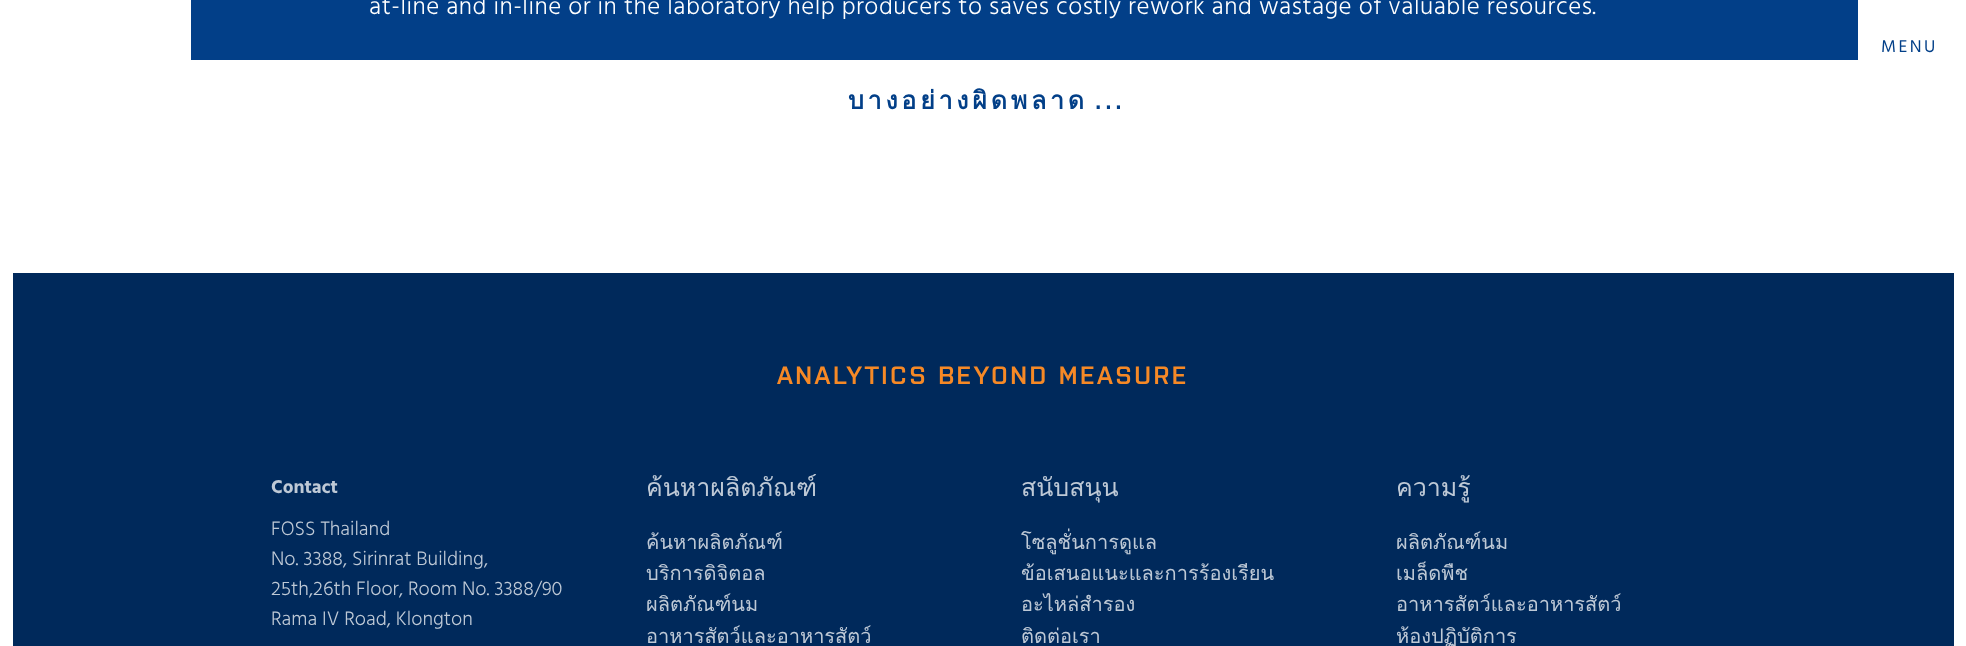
<svg xmlns="http://www.w3.org/2000/svg" width="1966" height="646">
<rect width="100%" height="100%" fill="#fff"/>
<rect x="191" width="1667" height="60" fill="#023f88"/>
<text x="369" y="14" style="font-family:Hind;font-size:25px;font-weight:300;letter-spacing:0.5px;fill:#fff">at-line and in-line or in the laboratory help producers to saves costly rework and wastage of valuable resources.</text>
<text x="848" y="109" style="font-family:Loma;font-size:25px;font-weight:bold;letter-spacing:3.75px;fill:#023f88">บางอย่างผิดพลาด</text>
<text x="1095" y="109" style="font-family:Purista;font-size:25px;font-weight:600;letter-spacing:3.75px;fill:#023f88">...</text>
<text x="1881" y="52" style="font-family:Hind;font-size:17.5px;letter-spacing:2.5px;fill:#023f88">MENU</text>
<rect x="13" y="273" width="1941" height="373" fill="#00295b"/>
<text x="777" y="384" style="font-family:Purista;font-size:25px;font-weight:600;letter-spacing:2.5px;fill:#f68926">ANALYTICS BEYOND MEASURE</text>
<text x="271" y="493" style="font-family:Hind;font-size:19px;font-weight:bold;fill:#bec9d6">Contact</text>
<text x="271" y="535" style="font-family:Hind;font-size:20px;font-weight:300;fill:#bec9d6">FOSS Thailand</text>
<text x="271" y="565" style="font-family:Hind;font-size:20px;font-weight:300;fill:#bec9d6">No. 3388, Sirinrat Building,</text>
<text x="271" y="595" style="font-family:Hind;font-size:20px;font-weight:300;fill:#bec9d6">25th,26th Floor, Room No. 3388/90</text>
<text x="271" y="625" style="font-family:Hind;font-size:20px;font-weight:300;fill:#bec9d6">Rama IV Road, Klongton</text>
<text x="646" y="496" style="font-family:Loma;font-size:25px;fill:#bec9d6">ค้นหาผลิตภัณฑ์</text>
<text x="646" y="549" style="font-family:Loma;font-size:20px;fill:#bec9d6">ค้นหาผลิตภัณฑ์</text>
<text x="646" y="580" style="font-family:Loma;font-size:20px;fill:#bec9d6">บริการดิจิตอล</text>
<text x="646" y="611" style="font-family:Loma;font-size:20px;fill:#bec9d6">ผลิตภัณฑ์นม</text>
<text x="646" y="643" style="font-family:Loma;font-size:20px;fill:#bec9d6">อาหารสัตว์และอาหารสัตว์</text>
<text x="1021" y="496" style="font-family:Loma;font-size:25px;fill:#bec9d6">สนับสนุน</text>
<text x="1021" y="549" style="font-family:Loma;font-size:20px;fill:#bec9d6">โซลูชั่นการดูแล</text>
<text x="1021" y="580" style="font-family:Loma;font-size:20px;fill:#bec9d6">ข้อเสนอแนะและการร้องเรียน</text>
<text x="1021" y="611" style="font-family:Loma;font-size:20px;fill:#bec9d6">อะไหล่สำรอง</text>
<text x="1021" y="643" style="font-family:Loma;font-size:20px;fill:#bec9d6">ติดต่อเรา</text>
<text x="1396" y="496" style="font-family:Loma;font-size:25px;fill:#bec9d6">ความรู้</text>
<text x="1396" y="549" style="font-family:Loma;font-size:20px;fill:#bec9d6">ผลิตภัณฑ์นม</text>
<text x="1396" y="580" style="font-family:Loma;font-size:20px;fill:#bec9d6">เมล็ดพืช</text>
<text x="1396" y="611" style="font-family:Loma;font-size:20px;fill:#bec9d6">อาหารสัตว์และอาหารสัตว์</text>
<text x="1396" y="643" style="font-family:Loma;font-size:20px;fill:#bec9d6">ห้องปฏิบัติการ</text>
</svg>
